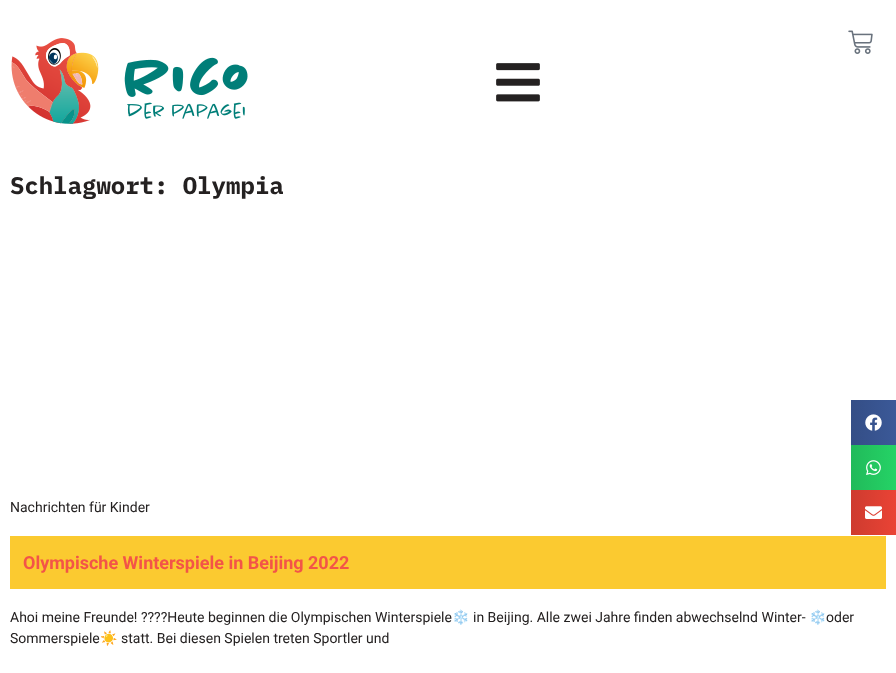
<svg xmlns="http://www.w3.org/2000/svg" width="896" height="673">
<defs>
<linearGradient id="g1" gradientUnits="userSpaceOnUse" x1="851" y1="423" x2="896" y2="423"><stop offset="0" stop-color="#344e86"/><stop offset="1" stop-color="#3b5998"/></linearGradient>
<linearGradient id="g2" gradientUnits="userSpaceOnUse" x1="851" y1="468" x2="896" y2="468"><stop offset="0" stop-color="#21ba5a"/><stop offset="1" stop-color="#25d366"/></linearGradient>
<linearGradient id="g3" gradientUnits="userSpaceOnUse" x1="851" y1="513" x2="896" y2="513"><stop offset="0" stop-color="#ce3b2f"/><stop offset="1" stop-color="#ea4335"/></linearGradient>
</defs>
<rect width="100%" height="100%" fill="#fff"/>
<image x="11" y="38" width="237" height="86" href="media/1.png"/>
<image x="848" y="30" width="25" height="24" href="media/2.png"/>
<image x="496" y="63" width="44" height="39" href="media/3.png"/>
<text x="10" y="194" style="font-family:IBM Plex Mono;font-size:24px;font-weight:bold;fill:#242121">Schlagwort: Olympia</text>
<text x="10" y="512" style="font-family:Roboto;font-size:14px;fill:#242121">Nachrichten für Kinder</text>
<rect x="10" y="536" width="876" height="53" fill="#fbca30"/>
<text x="23" y="569" style="font-family:Roboto;font-size:18px;font-weight:bold;fill:#f35448">Olympische Winterspiele in Beijing 2022</text>
<text x="10" y="622" style="font-family:Roboto;font-size:14px;fill:#242121">Ahoi meine Freunde! ????Heute beginnen die Olympischen Winterspiele</text>
<text x="452" y="622" style="font-family:Noto Color Emoji;font-size:14px;fill:#242121">❄️</text>
<text x="473" y="622" style="font-family:Roboto;font-size:14px;fill:#242121">in Beijing. Alle zwei Jahre finden abwechselnd Winter-</text>
<text x="809" y="622" style="font-family:Noto Color Emoji;font-size:14px;fill:#242121">❄️</text>
<text x="826" y="622" style="font-family:Roboto;font-size:14px;fill:#242121">oder</text>
<text x="10" y="643" style="font-family:Roboto;font-size:14px;fill:#242121">Sommerspiele</text>
<text x="100" y="643" style="font-family:Noto Color Emoji;font-size:14px;fill:#242121">☀️</text>
<text x="121" y="643" style="font-family:Roboto;font-size:14px;fill:#242121">statt. Bei diesen Spielen treten Sportler und</text>
<rect x="851" y="400" width="45" height="45" fill="url(#g1)"/>
<image x="865" y="414" width="17" height="17" href="media/4.png"/>
<rect x="851" y="445" width="45" height="45" fill="url(#g2)"/>
<image x="866" y="460" width="15" height="15" href="media/5.png"/>
<rect x="851" y="490" width="45" height="45" fill="url(#g3)"/>
<image x="865" y="506" width="17" height="13" href="media/6.png"/>
</svg>
